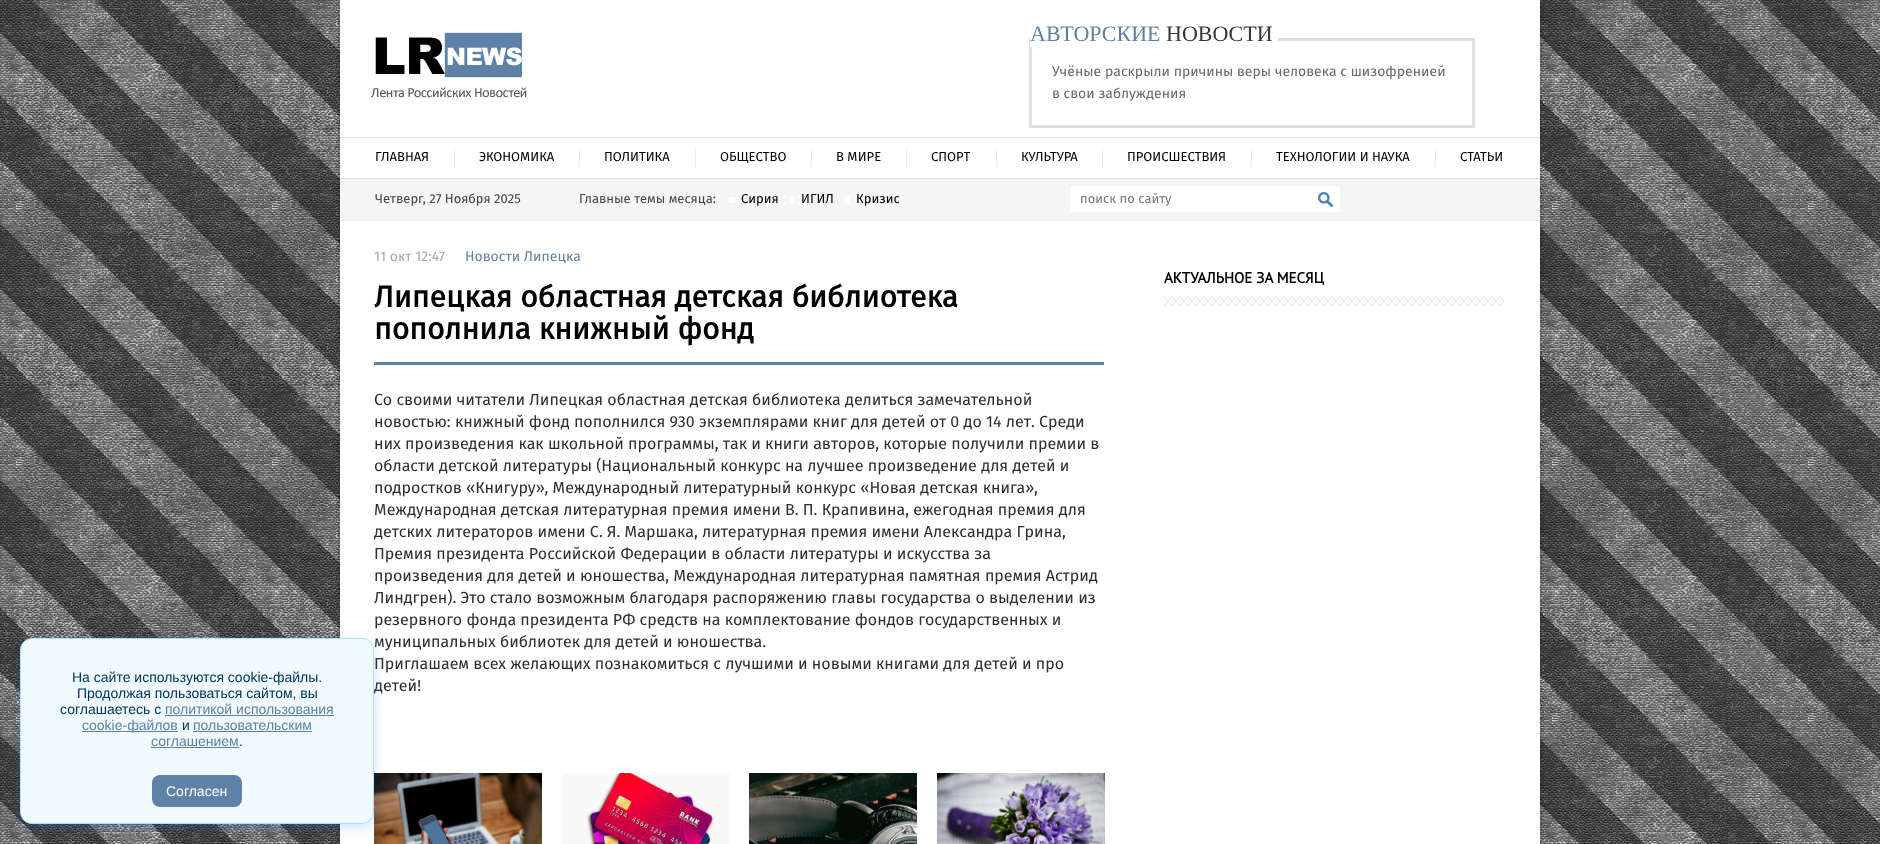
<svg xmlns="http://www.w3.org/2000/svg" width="1880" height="844">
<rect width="100%" height="100%" fill="#fff"/>
<image x="0" y="0" width="1880" height="844" href="media/1.png"/>
<rect x="340" width="1200" height="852" fill="#0000006b" filter="blur(2.5px)"/>
<rect x="340" width="1200" height="844" fill="#fff"/>
<rect x="340" y="137" width="1200" height="1" fill="#e1e1e1"/>
<image x="371" y="32" width="156" height="66" href="media/2.png"/>
<rect x="1030.5" y="39.5" width="443" height="87" fill="none" stroke="#dedede" stroke-width="3"/>
<rect x="1030" y="38" width="248" height="9" fill="#fff"/>
<text x="1030" y="41" style="font-family:Liberation Serif;font-size:22px;fill:#5e81a8">АВТОРСКИЕ</text>
<text x="1166" y="41" style="font-family:Liberation Serif;font-size:22px;fill:#373737">НОВОСТИ</text>
<text x="1052" y="76" style="font-family:Fira Sans;font-size:14px;fill:#676868">Учёные раскрыли причины веры человека с шизофренией</text>
<text x="1052" y="98" style="font-family:Fira Sans;font-size:14px;fill:#676868">в свои заблуждения</text>
<rect x="340" y="178" width="1200" height="1" fill="#e1e1e1"/>
<text x="375" y="161" style="font-family:Fira Sans;font-size:13px;fill:#000">ГЛАВНАЯ</text>
<rect x="454" y="149" width="1" height="18" fill="#ebebeb"/>
<text x="479" y="161" style="font-family:Fira Sans;font-size:13px;fill:#000">ЭКОНОМИКА</text>
<rect x="579" y="149" width="1" height="18" fill="#ebebeb"/>
<text x="604" y="161" style="font-family:Fira Sans;font-size:13px;fill:#000">ПОЛИТИКА</text>
<rect x="695" y="149" width="1" height="18" fill="#ebebeb"/>
<text x="720" y="161" style="font-family:Fira Sans;font-size:13px;fill:#000">ОБЩЕСТВО</text>
<rect x="811" y="149" width="1" height="18" fill="#ebebeb"/>
<text x="836" y="161" style="font-family:Fira Sans;font-size:13px;fill:#000">В МИРЕ</text>
<rect x="906" y="149" width="1" height="18" fill="#ebebeb"/>
<text x="931" y="161" style="font-family:Fira Sans;font-size:13px;fill:#000">СПОРТ</text>
<rect x="996" y="149" width="1" height="18" fill="#ebebeb"/>
<text x="1021" y="161" style="font-family:Fira Sans;font-size:13px;fill:#000">КУЛЬТУРА</text>
<rect x="1102" y="149" width="1" height="18" fill="#ebebeb"/>
<text x="1127" y="161" style="font-family:Fira Sans;font-size:13px;fill:#000">ПРОИСШЕСТВИЯ</text>
<rect x="1251" y="149" width="1" height="18" fill="#ebebeb"/>
<text x="1276" y="161" style="font-family:Fira Sans;font-size:13px;fill:#000">ТЕХНОЛОГИИ И НАУКА</text>
<rect x="1435" y="149" width="1" height="18" fill="#ebebeb"/>
<text x="1460" y="161" style="font-family:Fira Sans;font-size:13px;fill:#000">СТАТЬИ</text>
<rect x="340" y="179" width="1200" height="41" fill="#f5f5f5"/>
<rect x="340" y="220" width="1200" height="1" fill="#eaeaea"/>
<text x="375" y="203" style="font-family:Fira Sans;font-size:13px;fill:#454545">Четверг, 27 Ноября 2025</text>
<text x="579" y="203" style="font-family:Fira Sans;font-size:13px;fill:#454545">Главные темы месяца:</text>
<text x="741" y="203" style="font-family:Fira Sans;font-size:13px;fill:#000">Сирия</text>
<rect x="729" y="197" width="6" height="6" fill="#fff"/>
<text x="801" y="203" style="font-family:Fira Sans;font-size:13px;fill:#000">ИГИЛ</text>
<rect x="789" y="197" width="6" height="6" fill="#fff"/>
<text x="856" y="203" style="font-family:Fira Sans;font-size:13px;fill:#000">Кризис</text>
<rect x="844" y="197" width="6" height="6" fill="#fff"/>
<rect x="1070" y="186" width="270" height="26" fill="#fff"/>
<text x="1080" y="203" style="font-family:Fira Sans;font-size:13px;fill:#787878">поиск по сайту</text>
<image x="1318" y="192" width="15" height="15" href="media/3.png"/>
<text x="374" y="261" style="font-family:Fira Sans;font-size:14px;fill:#a7a7a7">11 окт 12:47</text>
<text x="465" y="261" style="font-family:Fira Sans;font-size:14px;fill:#5e81a8">Новости Липецка</text>
<rect x="374" y="362" width="730" height="3" fill="#5e81a8"/>
<text x="374" y="307" style="font-family:Fira Sans;font-size:30px;font-weight:bold;fill:#000">Липецкая областная детская библиотека</text>
<text x="374" y="339" style="font-family:Fira Sans;font-size:30px;font-weight:bold;fill:#000">пополнила книжный фонд</text>
<text x="374" y="405" style="font-family:Fira Sans;font-size:16px;fill:#2e2e2e">Со своими читатели Липецкая областная детская библиотека делиться замечательной</text>
<text x="374" y="427" style="font-family:Fira Sans;font-size:16px;fill:#2e2e2e">новостью: книжный фонд пополнился 930 экземплярами книг для детей от 0 до 14 лет. Среди</text>
<text x="374" y="449" style="font-family:Fira Sans;font-size:16px;fill:#2e2e2e">них произведения как школьной программы, так и книги авторов, которые получили премии в</text>
<text x="374" y="471" style="font-family:Fira Sans;font-size:16px;fill:#2e2e2e">области детской литературы (Национальный конкурс на лучшее произведение для детей и</text>
<text x="374" y="493" style="font-family:Fira Sans;font-size:16px;fill:#2e2e2e">подростков «Книгуру», Международный литературный конкурс «Новая детская книга»,</text>
<text x="374" y="515" style="font-family:Fira Sans;font-size:16px;fill:#2e2e2e">Международная детская литературная премия имени В. П. Крапивина, ежегодная премия для</text>
<text x="374" y="537" style="font-family:Fira Sans;font-size:16px;fill:#2e2e2e">детских литераторов имени С. Я. Маршака, литературная премия имени Александра Грина,</text>
<text x="374" y="559" style="font-family:Fira Sans;font-size:16px;fill:#2e2e2e">Премия президента Российской Федерации в области литературы и искусства за</text>
<text x="374" y="581" style="font-family:Fira Sans;font-size:16px;fill:#2e2e2e">произведения для детей и юношества, Международная литературная памятная премия Астрид</text>
<text x="374" y="603" style="font-family:Fira Sans;font-size:16px;fill:#2e2e2e">Линдгрен). Это стало возможным благодаря распоряжению главы государства о выделении из</text>
<text x="374" y="625" style="font-family:Fira Sans;font-size:16px;fill:#2e2e2e">резервного фонда президента РФ средств на комплектование фондов государственных и</text>
<text x="374" y="647" style="font-family:Fira Sans;font-size:16px;fill:#2e2e2e">муниципальных библиотек для детей и юношества.</text>
<text x="374" y="669" style="font-family:Fira Sans;font-size:16px;fill:#2e2e2e">Приглашаем всех желающих познакомиться с лучшими и новыми книгами для детей и про</text>
<text x="374" y="691" style="font-family:Fira Sans;font-size:16px;fill:#2e2e2e">детей!</text>
<image x="374" y="773" width="168" height="71" href="media/4.png"/>
<image x="562" y="773" width="168" height="71" href="media/5.png"/>
<image x="749" y="773" width="168" height="71" href="media/6.png"/>
<image x="937" y="773" width="168" height="71" href="media/7.png"/>
<image x="1164" y="296" width="340" height="11" href="media/8.png"/>
<text x="1164" y="283" style="font-family:PT Sans;font-size:15px;font-weight:bold;fill:#000">АКТУАЛЬНОЕ ЗА МЕСЯЦ</text>
<rect x="20" y="642" width="354" height="186" rx="12" fill="#007bff33" filter="blur(6px)"/>
<rect x="20.5" y="638.5" width="353" height="185" rx="11.5" fill="#f0faff" stroke="#b3e0ff"/>
<text x="72" y="682" style="font-family:Liberation Sans;font-size:14px;fill:#036">На сайте используются cookie-файлы.</text>
<text x="77" y="698" style="font-family:Liberation Sans;font-size:14px;fill:#036">Продолжая пользоваться сайтом, вы</text>
<text x="60" y="714" style="font-family:Liberation Sans;font-size:14px;fill:#036">соглашаетесь с</text>
<text x="165" y="714" style="font-family:Liberation Sans;font-size:14px;fill:#5e81a8">политикой использования</text>
<rect x="165" y="715" width="169" height="1" fill="#5e81a8"/>
<rect x="82" y="731" width="96" height="1" fill="#5e81a8"/>
<text x="82" y="730" style="font-family:Liberation Sans;font-size:14px;fill:#5e81a8">cookie-файлов</text>
<text x="182" y="730" style="font-family:Liberation Sans;font-size:14px;fill:#036">и</text>
<text x="193" y="730" style="font-family:Liberation Sans;font-size:14px;fill:#5e81a8">пользовательским</text>
<rect x="193" y="731" width="119" height="1" fill="#5e81a8"/>
<text x="151" y="746" style="font-family:Liberation Sans;font-size:14px;fill:#5e81a8">соглашением</text>
<rect x="151" y="747" width="88" height="1" fill="#5e81a8"/>
<text x="239" y="746" style="font-family:Liberation Sans;font-size:14px;fill:#036">.</text>
<rect x="152" y="775" width="90" height="32" rx="8" fill="#5e81a8"/>
<text x="166" y="796" style="font-family:Liberation Sans;font-size:14px;fill:#fff">Согласен</text>
</svg>
